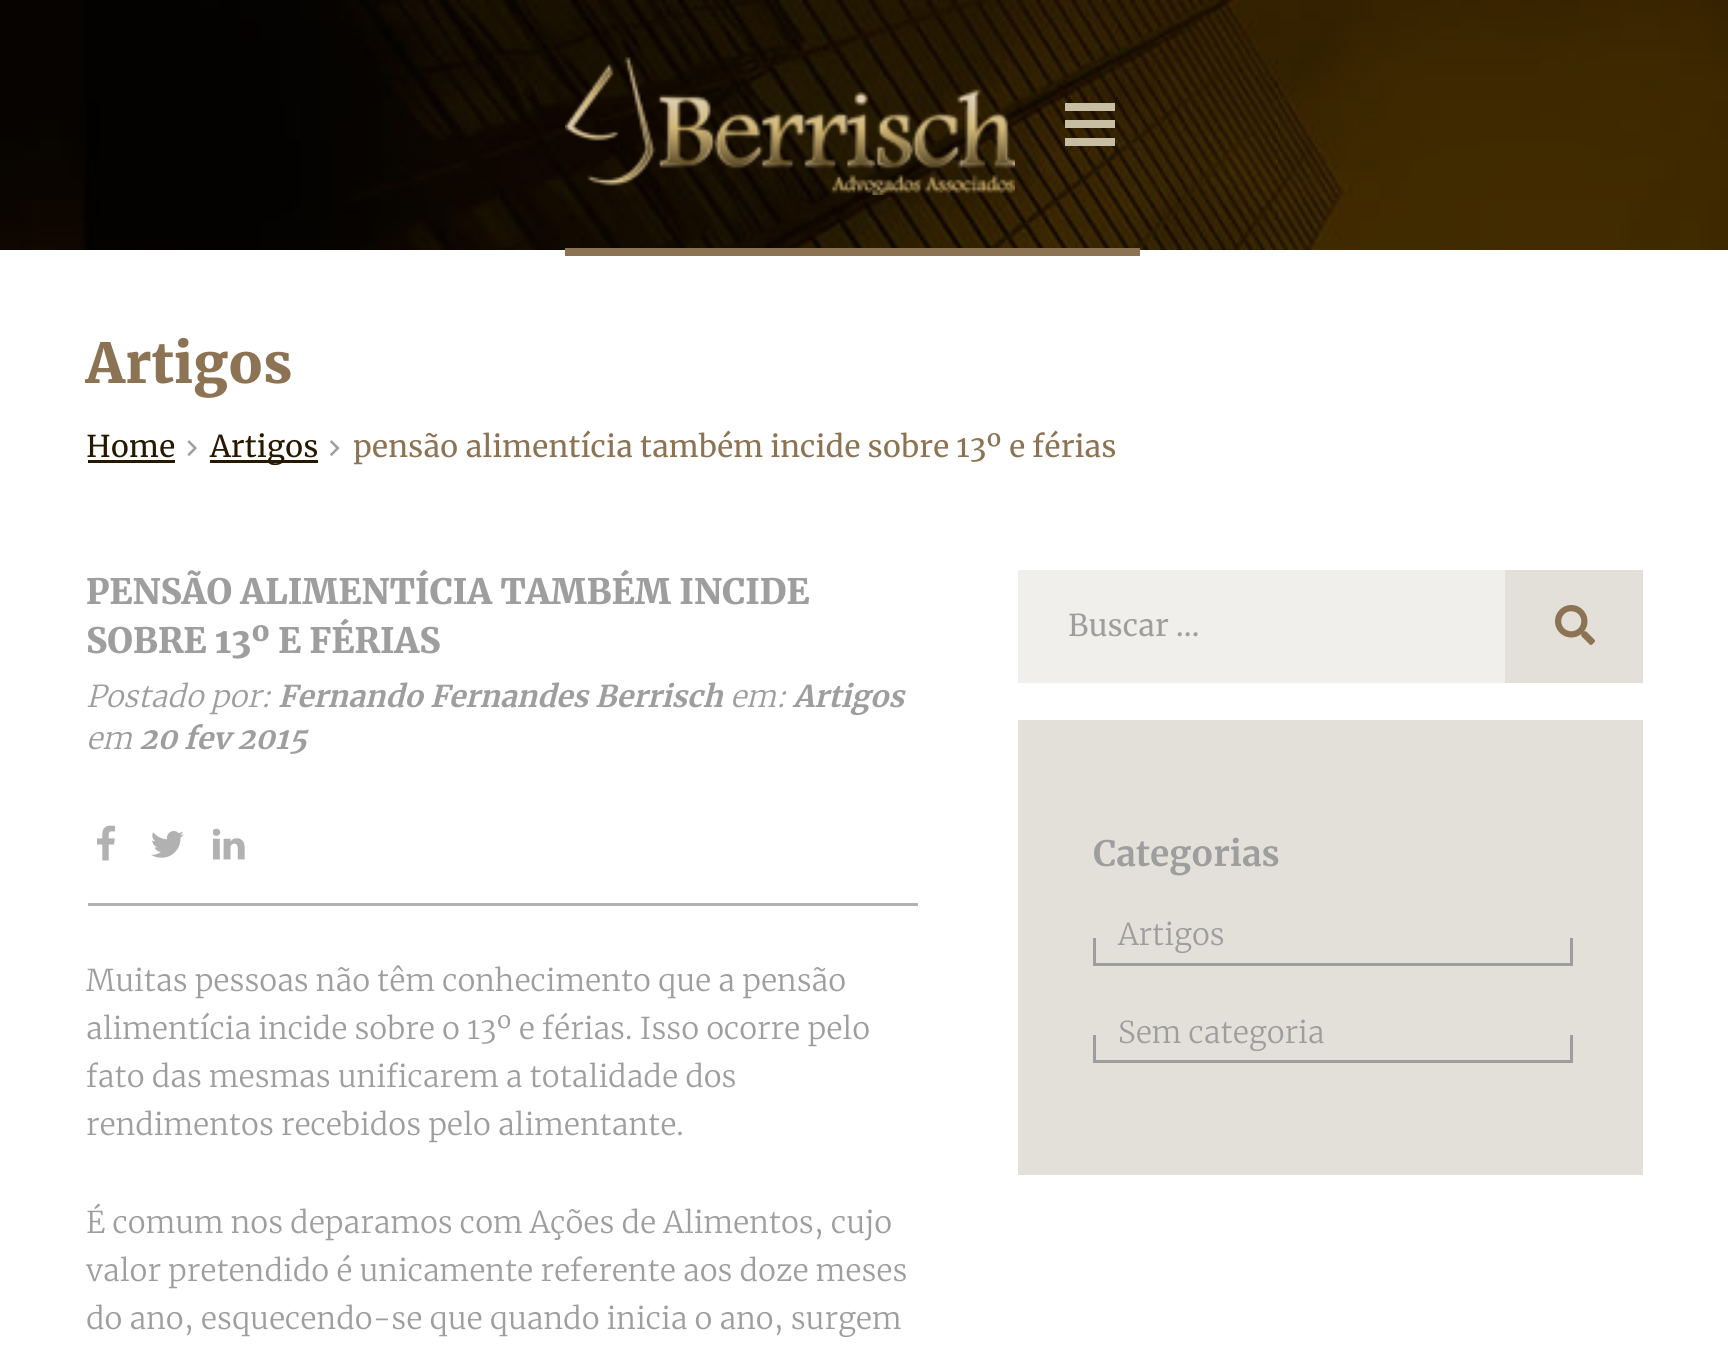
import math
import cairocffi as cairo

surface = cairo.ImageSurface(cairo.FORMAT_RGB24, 1728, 1359)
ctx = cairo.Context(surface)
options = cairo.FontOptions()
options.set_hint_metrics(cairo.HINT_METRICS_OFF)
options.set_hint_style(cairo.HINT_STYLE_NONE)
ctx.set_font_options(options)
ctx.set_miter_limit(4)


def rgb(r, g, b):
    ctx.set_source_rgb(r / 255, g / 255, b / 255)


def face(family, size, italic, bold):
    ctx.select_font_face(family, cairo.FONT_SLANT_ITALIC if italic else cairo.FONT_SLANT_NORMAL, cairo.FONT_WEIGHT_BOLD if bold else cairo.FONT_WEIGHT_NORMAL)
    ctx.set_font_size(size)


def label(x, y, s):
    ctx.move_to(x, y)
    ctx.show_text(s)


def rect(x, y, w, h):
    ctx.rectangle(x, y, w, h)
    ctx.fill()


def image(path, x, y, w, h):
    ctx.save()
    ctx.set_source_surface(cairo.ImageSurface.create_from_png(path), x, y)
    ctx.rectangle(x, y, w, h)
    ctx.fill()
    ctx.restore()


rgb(255, 255, 255)
ctx.paint()
image('image0.png', 0, 0, 1728, 250)
image('image1.png', 565, 57, 450, 138)
rgb(140, 115, 84)
rect(565, 248, 575, 8)
rgb(200, 190, 164)
rect(1065, 120, 50, 8)
rect(1065, 103, 50, 8)
rect(1065, 138, 50, 8)
face('Merriweather Black', 55, 0, 0)
rgb(140, 115, 84)
label(86, 383, 'Artigos')
face('Merriweather', 30, 0, 0)
rgb(39, 24, 1)
label(86, 457, 'Home')
rect(88, 460, 87, 3)
image('image2.png', 187, 440, 10, 16)
rect(210, 460, 108, 3)
label(210, 457, 'Artigos')
image('image3.png', 330, 440, 10, 16)
rgb(140, 115, 84)
label(353, 457, 'pensão alimentícia também incide sobre 13º e férias')
face('Merriweather Black', 35, 0, 0)
rgb(158, 158, 158)
label(86, 604, 'PENSÃO ALIMENTÍCIA TAMBÉM INCIDE')
label(86, 653, 'SOBRE 13º E FÉRIAS')
face('Merriweather Light', 30, 1, 0)
label(86, 707, 'Postado por:')
face('Merriweather', 30, 1, 1)
label(278, 707, 'Fernando Fernandes Berrisch')
face('Merriweather Light', 30, 1, 0)
label(730, 707, 'em:')
face('Merriweather', 30, 1, 1)
label(793, 707, 'Artigos')
face('Merriweather Light', 30, 1, 0)
label(86, 749, 'em')
face('Merriweather', 30, 1, 1)
label(139, 749, '20 fev 2015')
rgb(177, 177, 177)
rect(88, 903, 830, 3)
image('image4.png', 97, 825, 19, 36)
image('image5.png', 151, 831, 33, 27)
image('image6.png', 213, 828, 32, 32)
face('Merriweather Light', 30, 0, 0)
rgb(158, 158, 158)
label(86, 991, 'Muitas pessoas não têm conhecimento que a pensão')
label(86, 1039, 'alimentícia incide sobre o 13º e férias. Isso ocorre pelo')
label(86, 1087, 'fato das mesmas unificarem a totalidade dos')
label(86, 1135, 'rendimentos recebidos pelo alimentante.')
label(86, 1233, 'É comum nos deparamos com Ações de Alimentos, cujo')
label(86, 1281, 'valor pretendido é unicamente referente aos doze meses')
label(86, 1329, 'do ano, esquecendo-se que quando inicia o ano, surgem')
rgb(241, 239, 235)
rect(1018, 570, 487, 113)
face('Merriweather', 30, 0, 0)
rgb(158, 158, 158)
label(1068, 636, 'Buscar …')
rgb(227, 224, 218)
rect(1505, 570, 138, 113)
image('image7.png', 1555, 605, 40, 40)
rect(1018, 720, 625, 455)
face('Merriweather', 35, 0, 1)
rgb(158, 158, 158)
label(1093, 866, 'Categorias')
face('Merriweather Light', 30, 0, 0)
label(1118, 945, 'Artigos')
rect(1570, 938, 3, 27)
rect(1093, 963, 480, 3)
rect(1093, 938, 3, 27)
label(1118, 1043, 'Sem categoria')
rect(1570, 1035, 3, 28)
rect(1093, 1060, 480, 3)
rect(1093, 1035, 3, 28)
surface.write_to_png('render.png')
